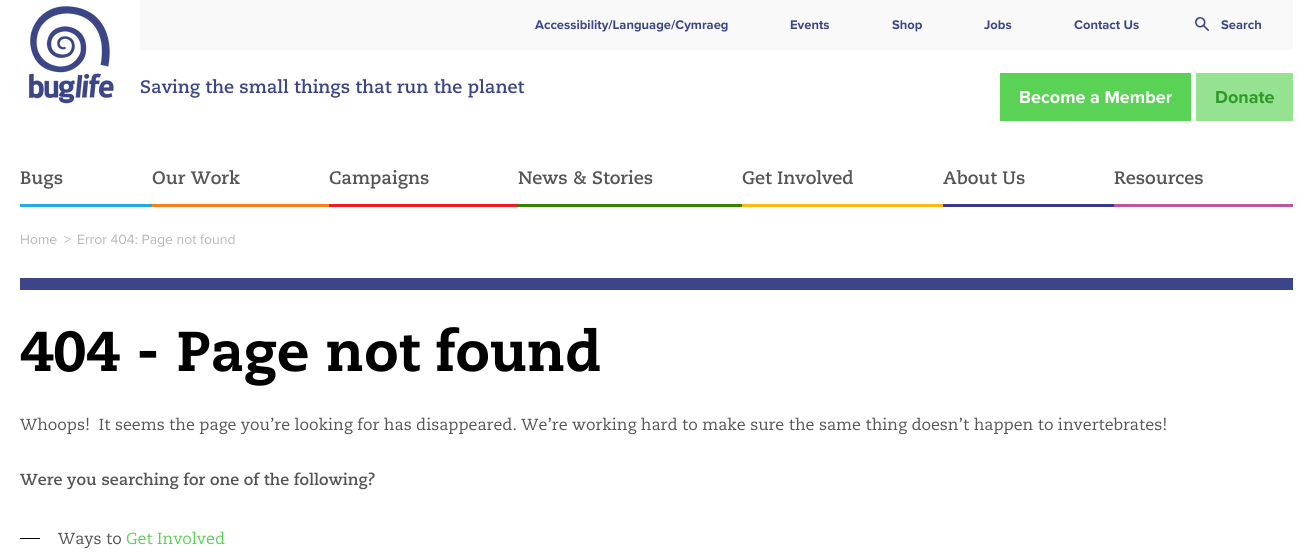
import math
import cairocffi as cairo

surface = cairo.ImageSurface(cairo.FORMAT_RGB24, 1313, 558)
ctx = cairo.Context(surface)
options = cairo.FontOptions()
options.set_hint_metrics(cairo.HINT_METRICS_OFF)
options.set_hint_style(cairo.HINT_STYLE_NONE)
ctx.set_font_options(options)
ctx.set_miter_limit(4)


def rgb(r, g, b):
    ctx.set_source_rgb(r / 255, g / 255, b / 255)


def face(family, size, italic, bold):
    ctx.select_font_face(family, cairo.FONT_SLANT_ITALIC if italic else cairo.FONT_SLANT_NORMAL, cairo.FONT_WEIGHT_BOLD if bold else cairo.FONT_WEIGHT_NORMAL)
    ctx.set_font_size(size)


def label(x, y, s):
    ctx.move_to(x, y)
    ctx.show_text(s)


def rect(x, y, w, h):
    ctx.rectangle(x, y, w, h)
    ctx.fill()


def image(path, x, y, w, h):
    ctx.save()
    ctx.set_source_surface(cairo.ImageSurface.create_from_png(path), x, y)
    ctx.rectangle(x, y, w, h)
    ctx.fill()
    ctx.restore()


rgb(255, 255, 255)
ctx.paint()
image('image0.png', 29, 6, 85, 98)
rgb(249, 249, 249)
rect(140, 0, 1153, 50)
face('Proxima Nova', 13, 0, 1)
rgb(59, 69, 135)
label(535, 29, 'Accessibility/Language/Cymraeg')
label(790, 29, 'Events')
label(892, 29, 'Shop')
label(984, 29, 'Jobs')
label(1074, 29, 'Contact Us')
image('image1.png', 1195, 17, 14, 14)
label(1221, 29, 'Search')
face('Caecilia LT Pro', 18, 0, 1)
label(140, 93, 'Saving the small things that run the planet')
rgb(90, 210, 85)
rect(1000, 73, 191, 48)
face('Proxima Nova', 18, 0, 1)
rgb(255, 255, 255)
label(1019, 103, 'Become a Member')
rgb(149, 226, 145)
rect(1196, 73, 97, 48)
rgb(45, 153, 40)
label(1215, 103, 'Donate')
rgb(39, 170, 225)
rect(20, 204, 132, 3)
face('Caecilia LT Pro', 18, 0, 1)
rgb(85, 85, 85)
label(20, 184, 'Bugs')
rgb(245, 130, 32)
rect(152, 204, 177, 3)
rgb(85, 85, 85)
label(152, 184, 'Our Work')
rgb(237, 28, 36)
rect(329, 204, 189, 3)
rgb(85, 85, 85)
label(329, 184, 'Campaigns')
rgb(57, 130, 0)
rect(518, 204, 224, 3)
rgb(85, 85, 85)
label(518, 184, 'News & Stories')
rgb(253, 185, 19)
rect(742, 204, 201, 3)
rgb(85, 85, 85)
label(742, 184, 'Get Involved')
rgb(57, 56, 139)
rect(943, 204, 171, 3)
rgb(85, 85, 85)
label(943, 184, 'About Us')
rgb(189, 86, 160)
rect(1114, 204, 179, 3)
rgb(85, 85, 85)
label(1114, 184, 'Resources')
face('Proxima Nova', 14, 0, 0)
rgb(186, 182, 179)
label(20, 244, 'Home')
label(64, 244, '>')
label(77, 244, 'Error 404: Page not found')
rgb(59, 69, 135)
rect(20, 278, 1273, 12)
face('Caecilia LT Pro Black', 56, 0, 0)
rgb(0, 0, 0)
label(20, 371, '404 - Page not found')
face('Caecilia LT Pro', 16, 0, 0)
rgb(85, 85, 85)
label(20, 430, 'Whoops!  It seems the page you’re looking for has disappeared. We’re working hard to make sure the same thing doesn’t happen to invertebrates!')
face('Caecilia LT Pro', 16, 0, 1)
label(20, 485, 'Were you searching for one of the following?')
rgb(0, 0, 0)
rect(20, 538, 20, 1)
face('Caecilia LT Pro', 16, 0, 0)
rgb(85, 85, 85)
label(58, 544, 'Ways to')
rgb(90, 210, 85)
label(126, 544, 'Get Involved')
surface.write_to_png('render.png')
